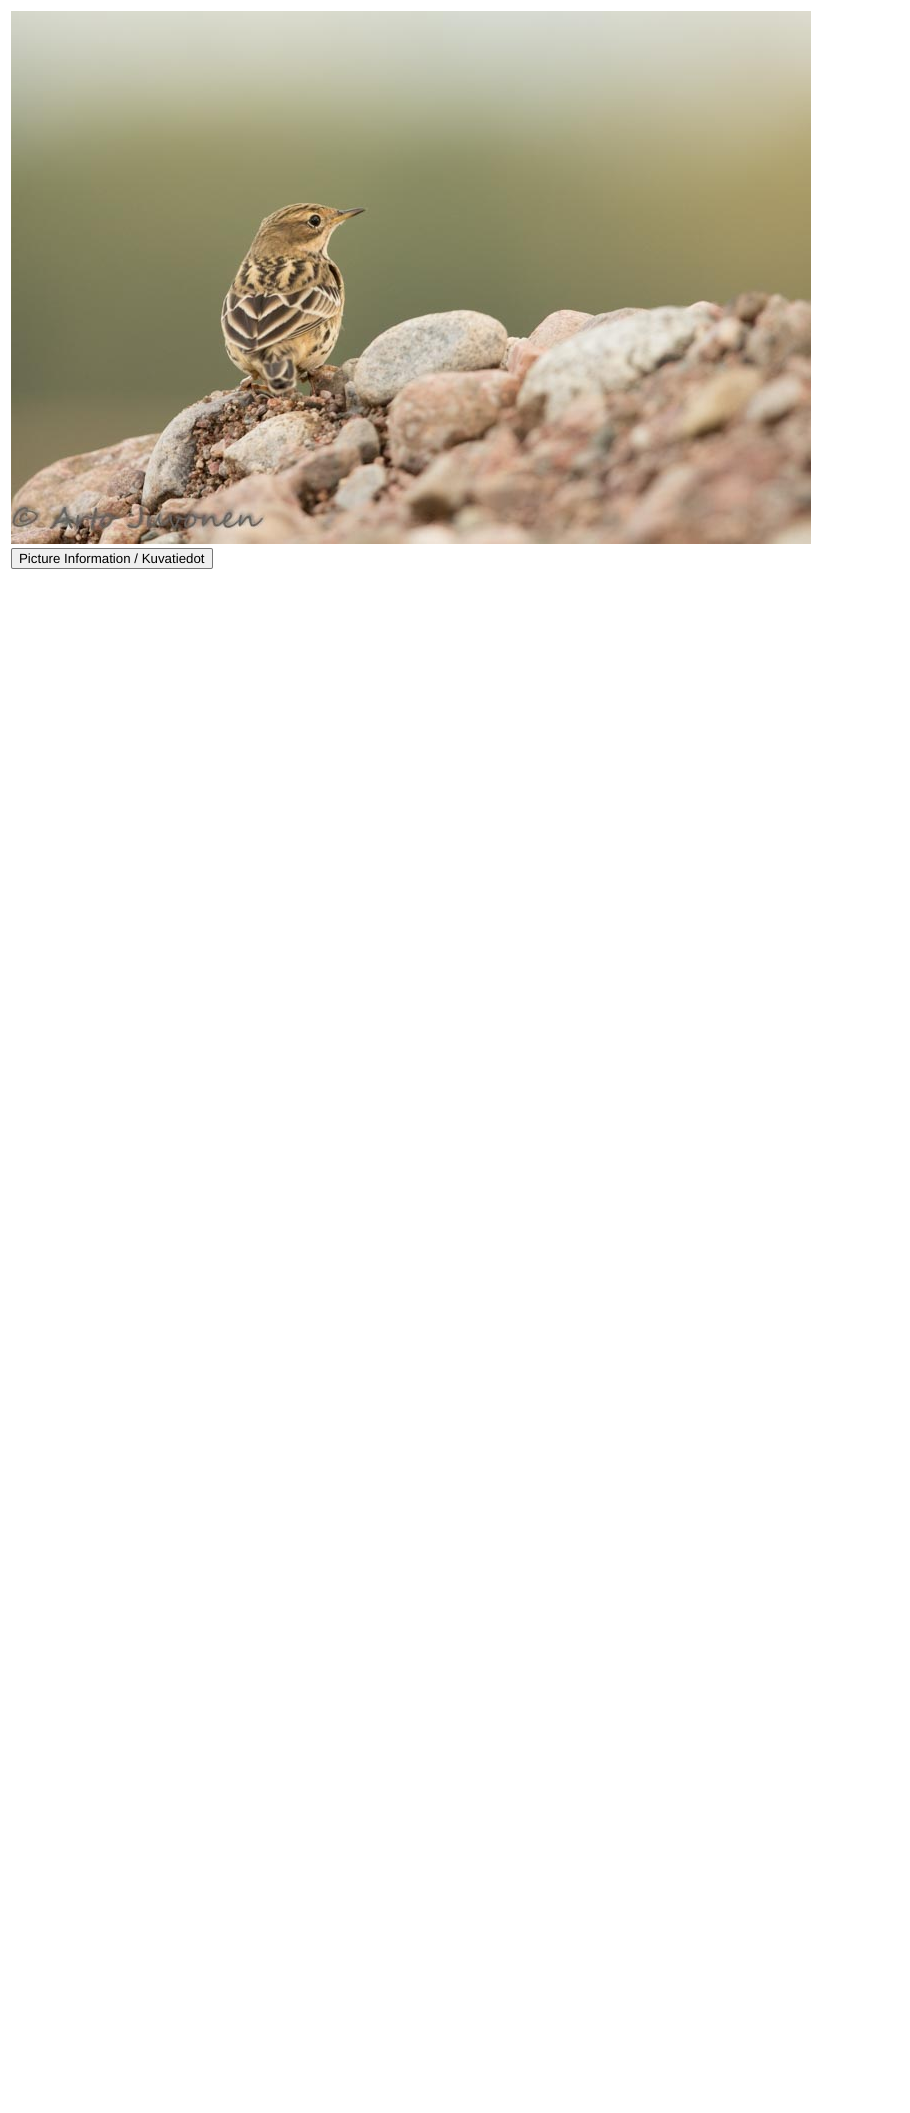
import math
import cairocffi as cairo

surface = cairo.ImageSurface(cairo.FORMAT_RGB24, 910, 2113)
ctx = cairo.Context(surface)
options = cairo.FontOptions()
options.set_hint_metrics(cairo.HINT_METRICS_OFF)
options.set_hint_style(cairo.HINT_STYLE_NONE)
ctx.set_font_options(options)
ctx.set_miter_limit(4)


def rgb(r, g, b):
    ctx.set_source_rgb(r / 255, g / 255, b / 255)


def face(family, size, italic, bold):
    ctx.select_font_face(family, cairo.FONT_SLANT_ITALIC if italic else cairo.FONT_SLANT_NORMAL, cairo.FONT_WEIGHT_BOLD if bold else cairo.FONT_WEIGHT_NORMAL)
    ctx.set_font_size(size)


def label(x, y, s):
    ctx.move_to(x, y)
    ctx.show_text(s)


def rrect(x, y, w, h, r):
    ctx.new_sub_path()
    for i, (u, v) in enumerate([(x + w - r, y + h - r), (x + r, y + h - r), (x + r, y + r), (x + w - r, y + r)]):
        ctx.arc(u, v, r, i * math.pi / 2, (i + 1) * math.pi / 2)
    ctx.close_path()


def image(path, x, y, w, h):
    ctx.save()
    ctx.set_source_surface(cairo.ImageSurface.create_from_png(path), x, y)
    ctx.rectangle(x, y, w, h)
    ctx.fill()
    ctx.restore()


rgb(255, 255, 255)
ctx.paint()
image('image0.png', 11, 11, 800, 533)
rgb(239, 239, 239)
rrect(11.5, 548.5, 201, 20, 1.5)
ctx.fill_preserve()
rgb(118, 118, 118)
ctx.set_line_width(1)
ctx.stroke()
face('Liberation Sans', 13.3, 0, 0)
rgb(0, 0, 0)
label(19, 563, 'Picture Information / Kuvatiedot')
surface.write_to_png('render.png')
